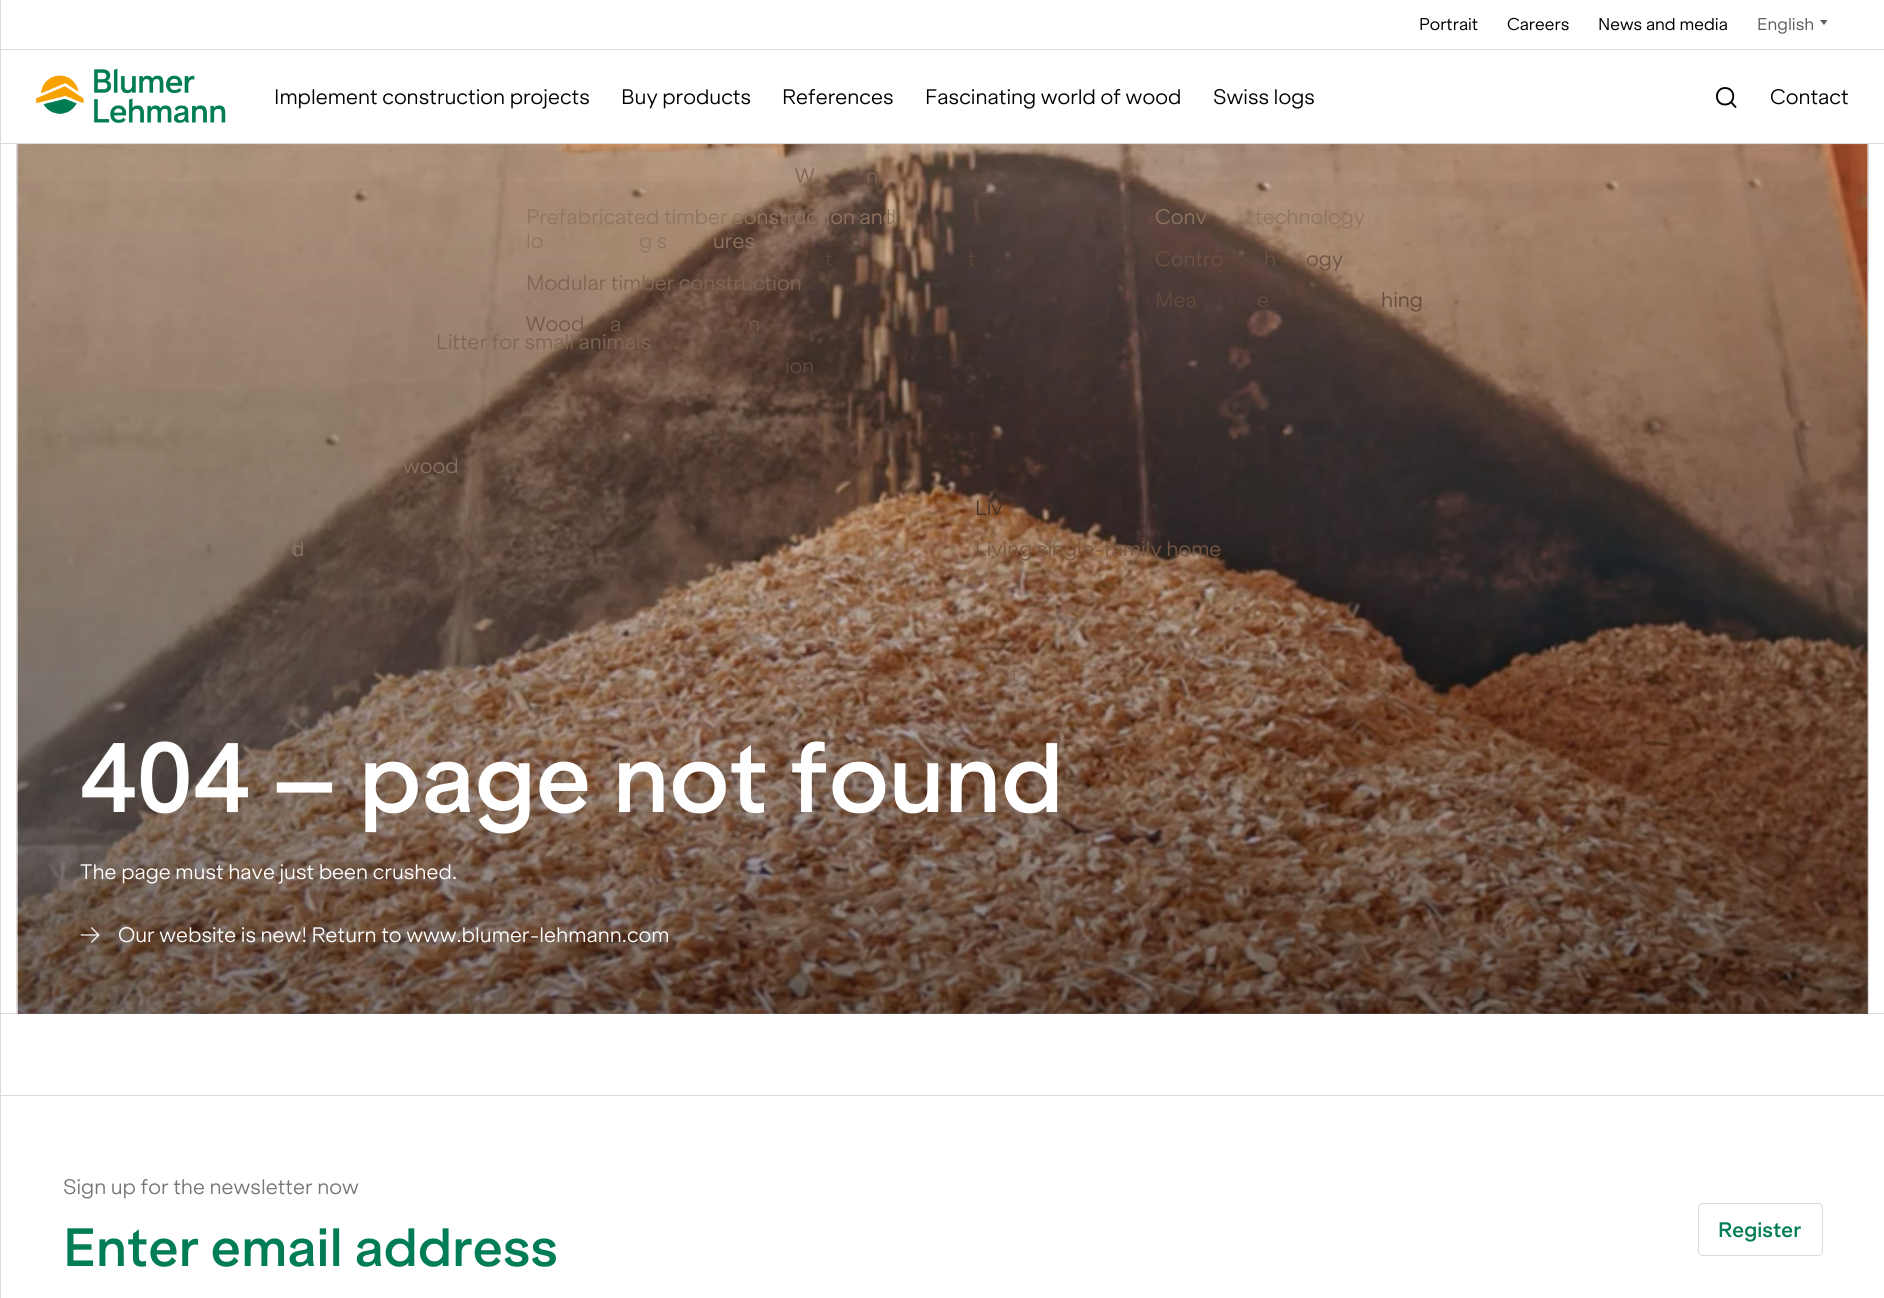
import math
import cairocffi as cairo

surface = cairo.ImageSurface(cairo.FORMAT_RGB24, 1884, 1298)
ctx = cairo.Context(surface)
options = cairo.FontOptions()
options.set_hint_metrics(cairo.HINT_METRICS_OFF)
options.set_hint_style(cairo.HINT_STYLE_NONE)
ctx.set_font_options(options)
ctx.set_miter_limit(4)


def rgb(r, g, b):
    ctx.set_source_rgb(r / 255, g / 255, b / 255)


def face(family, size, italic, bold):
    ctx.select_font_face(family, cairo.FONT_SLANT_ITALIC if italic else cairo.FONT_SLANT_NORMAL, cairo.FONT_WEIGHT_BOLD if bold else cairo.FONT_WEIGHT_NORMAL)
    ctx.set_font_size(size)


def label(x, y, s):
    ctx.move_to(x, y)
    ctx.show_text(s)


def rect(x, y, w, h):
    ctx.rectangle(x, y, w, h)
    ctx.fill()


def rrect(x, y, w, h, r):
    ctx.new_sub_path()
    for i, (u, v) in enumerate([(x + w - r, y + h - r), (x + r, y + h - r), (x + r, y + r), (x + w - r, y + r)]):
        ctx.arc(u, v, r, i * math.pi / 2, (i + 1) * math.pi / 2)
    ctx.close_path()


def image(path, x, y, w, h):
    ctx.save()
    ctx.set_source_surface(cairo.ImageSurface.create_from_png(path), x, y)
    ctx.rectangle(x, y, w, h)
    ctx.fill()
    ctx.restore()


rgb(255, 255, 255)
ctx.paint()
rgb(218, 218, 218)
rect(0, 0, 1, 1298)
rect(1, 49, 1883, 1)
face('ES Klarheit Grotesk', 16.25, 0, 0)
rgb(0, 0, 0)
label(1419, 30, 'Portrait')
label(1507, 30, 'Careers')
label(1598, 30, 'News and media')
rgb(93, 95, 88)
label(1757, 30, 'English')
ctx.new_path()
ctx.move_to(1820, 20)
ctx.line_to(1827.5, 20)
ctx.line_to(1824, 25)
ctx.close_path()
ctx.fill()
image('image0.png', 36, 68, 190, 55)
face('ES Klarheit Grotesk Light', 20, 0, 0)
rgb(0, 0, 0)
label(274, 104, 'Implement construction projects')
rgb(218, 218, 218)
ctx.new_path()
ctx.move_to(16, 144)
ctx.line_to(16, 1014)
ctx.line_to(1866, 1014)
ctx.line_to(18, 1014)
ctx.line_to(18, 144)
ctx.close_path()
ctx.fill()
ctx.new_path()
ctx.move_to(19, 1014)
ctx.line_to(1869, 1014)
ctx.line_to(1869, 144)
ctx.line_to(1868, 144)
ctx.line_to(1868, 1014)
ctx.close_path()
ctx.fill()
rect(1, 1013, 1883, 1)
image('image1.png', 17, 144, 1851, 870)
gradient = cairo.LinearGradient(943, 1014, 943, 144)
gradient.add_color_stop_rgba(0, 0, 0, 0, 0.5)
gradient.add_color_stop_rgba(1, 0, 0, 0, 0)
ctx.set_source(gradient)
rect(18, 182, 1850, 832)
rgb(144, 116, 96)
label(526, 224, 'Prefabricated timber construction and')
label(526, 248, 'lo')
label(639, 248, 'g s')
label(713, 248, 'ures')
rgb(128, 101, 83)
label(526, 290, 'Modular timber construction')
rgb(117, 90, 74)
label(526, 331, 'Wood')
label(610, 331, 'a')
label(748, 331, 'n')
rgb(99, 74, 60)
label(785, 373, 'ion')
rgb(135, 114, 97)
label(403, 473, 'wood')
label(292, 556, 't')
rgb(69, 51, 43)
label(975, 515, 'Liv')
rgb(118, 87, 66)
label(975, 556, 'Living single-family home')
rgb(134, 99, 77)
label(1011, 681, 't')
ctx.new_path()
ctx.move_to(1725, 104.5)
ctx.curve_to(1736, 104.5, 1736, 88, 1725, 88)
ctx.curve_to(1714.5, 88, 1714, 104.5, 1725, 104.5)
ctx.close_path()
ctx.move_to(1731, 102)
ctx.line_to(1735.5, 107)
rgb(0, 0, 0)
ctx.set_line_width(1.9)
ctx.set_line_cap(cairo.LINE_CAP_ROUND)
ctx.set_line_join(cairo.LINE_JOIN_ROUND)
ctx.stroke()
label(621, 104, 'Buy products')
rgb(128, 101, 83)
label(795, 183, 'W')
label(866, 183, 'n')
label(886, 224, 'l')
rgb(93, 71, 59)
label(825, 266, 't')
label(968, 266, 't')
rgb(144, 116, 96)
label(1155, 224, 'Conv')
label(1255, 224, 'technology')
rgb(108, 82, 69)
label(1155, 266, 'Contro')
label(1264, 266, 'h')
label(1306, 266, 'ogy')
rgb(99, 74, 60)
label(1155, 307, 'Mea')
label(1257, 307, 'e')
label(1381, 307, 'hing')
rgb(128, 101, 83)
label(436, 349, 'Litter for small animals')
rgb(135, 114, 97)
label(291, 556, 'd')
rgb(0, 0, 0)
label(782, 104, 'References')
label(925, 104, 'Fascinating world of wood')
label(1213, 104, 'Swiss logs')
label(1770, 104, 'Contact')
rgb(218, 218, 218)
rect(1, 143, 1883, 1)
face('ES Klarheit Grotesk SemiBold', 93.75, 0, 0)
rgb(255, 255, 255)
label(80, 812, '404 – page not found')
face('ES Klarheit Grotesk Light', 20, 0, 0)
label(80, 879, 'The page must have just been crushed.')
image('image2.png', 80, 927, 20, 16)
label(118, 942, 'Our website is new! Return to www.blumer-lehmann.com')
rgb(218, 218, 218)
rect(0, 1095, 1884, 1)
rgb(118, 118, 118)
label(63, 1194, 'Sign up for the newsletter now')
face('ES Klarheit Grotesk SemiBold', 51.25, 0, 0)
rgb(0, 124, 86)
label(63, 1266, 'Enter email address')
rrect(1698.5, 1203.5, 124, 52, 4.5)
rgb(218, 218, 218)
ctx.set_line_width(1)
ctx.set_line_cap(cairo.LINE_CAP_BUTT)
ctx.set_line_join(cairo.LINE_JOIN_MITER)
ctx.stroke()
face('ES Klarheit Grotesk SemiBold', 20, 0, 0)
rgb(0, 124, 86)
label(1718, 1237, 'Register')
surface.write_to_png('render.png')
